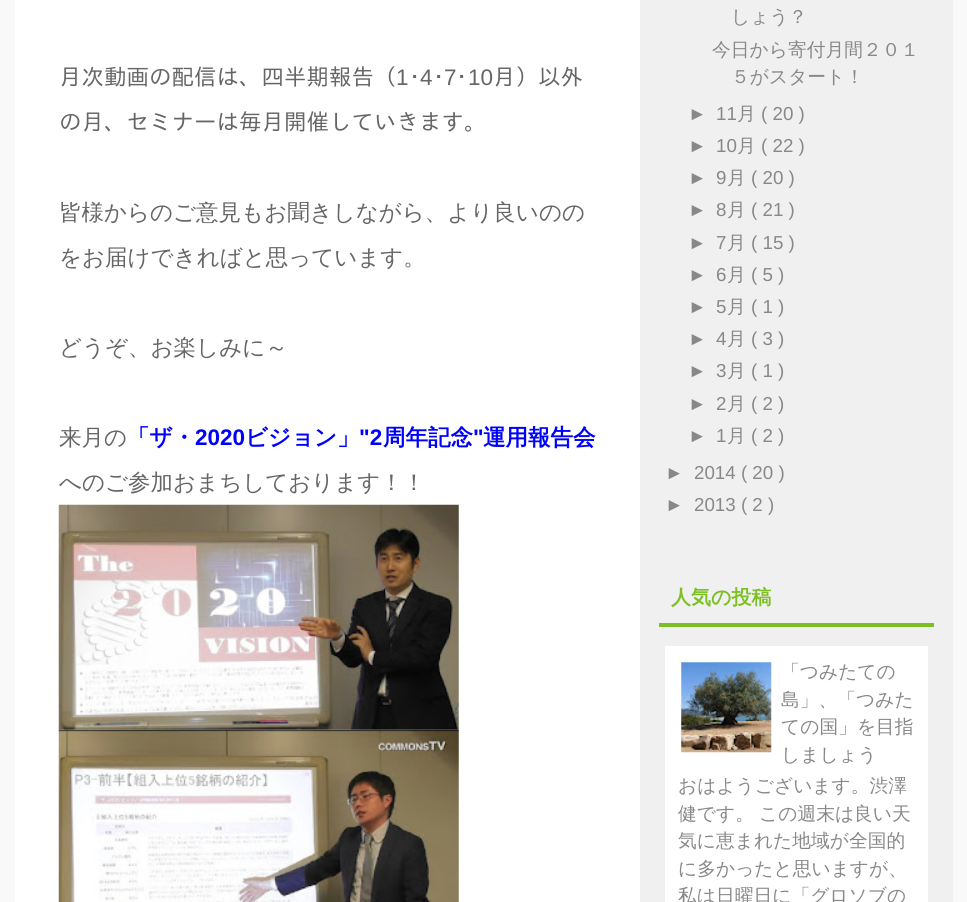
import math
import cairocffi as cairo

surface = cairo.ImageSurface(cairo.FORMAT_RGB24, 967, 902)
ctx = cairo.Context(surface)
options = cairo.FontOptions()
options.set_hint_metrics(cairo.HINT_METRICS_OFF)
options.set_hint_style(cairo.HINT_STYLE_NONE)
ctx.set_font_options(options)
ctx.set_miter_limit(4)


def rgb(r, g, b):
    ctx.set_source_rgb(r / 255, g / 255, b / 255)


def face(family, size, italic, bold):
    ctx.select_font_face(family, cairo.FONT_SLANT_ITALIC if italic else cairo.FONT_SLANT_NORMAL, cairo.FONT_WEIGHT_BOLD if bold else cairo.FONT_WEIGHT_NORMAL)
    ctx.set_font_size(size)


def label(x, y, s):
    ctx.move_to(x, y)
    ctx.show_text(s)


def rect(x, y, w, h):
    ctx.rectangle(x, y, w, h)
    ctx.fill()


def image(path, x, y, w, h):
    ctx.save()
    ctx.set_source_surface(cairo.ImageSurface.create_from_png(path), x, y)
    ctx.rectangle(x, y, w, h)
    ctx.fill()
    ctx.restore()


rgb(249, 249, 249)
ctx.paint()
rgb(255, 255, 255)
rect(15, 0, 625, 902)
face('IPAGothic', 22.5, 0, 0)
rgb(102, 102, 102)
label(59, 85, '月次動画の配信は、四半期報告（')
face('Liberation Sans', 22.5, 0, 0)
label(396, 85, '1')
face('IPAGothic', 22.5, 0, 0)
label(409, 85, '･')
face('Liberation Sans', 22.5, 0, 0)
label(420, 85, '4')
face('IPAGothic', 22.5, 0, 0)
label(433, 85, '･')
face('Liberation Sans', 22.5, 0, 0)
label(444, 85, '7')
face('IPAGothic', 22.5, 0, 0)
label(456, 85, '･')
face('Liberation Sans', 22.5, 0, 0)
label(468, 85, '10')
face('IPAGothic', 22.5, 0, 0)
label(493, 85, '月）以外')
label(59, 130, 'の月、セミナーは毎月開催していきます。')
face('WenQuanYi Zen Hei Medium', 22.5, 0, 0)
label(59, 220, '皆様からのご意見もお聞きしながら、より良いのの')
label(59, 265, 'をお届けできればと思っています。')
label(59, 355, 'どうぞ、お楽しみに～')
label(59, 445, '来月の')
face('WenQuanYi Zen Hei', 22.5, 0, 1)
rgb(0, 0, 255)
label(127, 445, '「ザ・')
face('Liberation Sans', 22.5, 0, 1)
label(195, 445, '2020')
face('WenQuanYi Zen Hei', 22.5, 0, 1)
label(245, 445, 'ビジョン」')
face('Liberation Sans', 22.5, 0, 1)
label(359, 445, '"2')
face('WenQuanYi Zen Hei', 22.5, 0, 1)
label(383, 445, '周年記念')
face('Liberation Sans', 22.5, 0, 1)
label(473, 445, '"')
face('WenQuanYi Zen Hei', 22.5, 0, 1)
label(483, 445, '運用報告会')
face('WenQuanYi Zen Hei Medium', 22.5, 0, 0)
rgb(102, 102, 102)
label(59, 490, 'へのご参加おまちしております！！')
image('image0.png', 58, 504, 401, 226)
image('image1.png', 58, 729, 401, 173)
rgb(240, 240, 240)
rect(640, 0, 313, 902)
face('WenQuanYi Zen Hei Medium', 18.75, 0, 0)
rgb(136, 136, 136)
label(731, 23, 'しょう？')
label(712, 56, '今日から寄付月間２０１')
label(731, 83, '５がスタート！')
face('Liberation Sans', 18.75, 0, 0)
label(688, 120, '►')
label(716, 120, '11')
face('WenQuanYi Zen Hei Medium', 18.75, 0, 0)
label(737, 120, '月')
face('Liberation Sans', 18.75, 0, 0)
label(761, 120, '( 20 )')
label(688, 152, '►')
label(716, 152, '10')
face('WenQuanYi Zen Hei Medium', 18.75, 0, 0)
label(737, 152, '月')
face('Liberation Sans', 18.75, 0, 0)
label(761, 152, '( 22 )')
label(688, 184, '►')
label(716, 184, '9')
face('WenQuanYi Zen Hei Medium', 18.75, 0, 0)
label(727, 184, '月')
face('Liberation Sans', 18.75, 0, 0)
label(751, 184, '( 20 )')
label(688, 216, '►')
label(716, 216, '8')
face('WenQuanYi Zen Hei Medium', 18.75, 0, 0)
label(727, 216, '月')
face('Liberation Sans', 18.75, 0, 0)
label(751, 216, '( 21 )')
label(688, 249, '►')
label(716, 249, '7')
face('WenQuanYi Zen Hei Medium', 18.75, 0, 0)
label(727, 249, '月')
face('Liberation Sans', 18.75, 0, 0)
label(751, 249, '( 15 )')
label(688, 281, '►')
label(716, 281, '6')
face('WenQuanYi Zen Hei Medium', 18.75, 0, 0)
label(727, 281, '月')
face('Liberation Sans', 18.75, 0, 0)
label(751, 281, '( 5 )')
label(688, 313, '►')
label(716, 313, '5')
face('WenQuanYi Zen Hei Medium', 18.75, 0, 0)
label(727, 313, '月')
face('Liberation Sans', 18.75, 0, 0)
label(751, 313, '( 1 )')
label(688, 345, '►')
label(716, 345, '4')
face('WenQuanYi Zen Hei Medium', 18.75, 0, 0)
label(727, 345, '月')
face('Liberation Sans', 18.75, 0, 0)
label(751, 345, '( 3 )')
label(688, 377, '►')
label(716, 377, '3')
face('WenQuanYi Zen Hei Medium', 18.75, 0, 0)
label(727, 377, '月')
face('Liberation Sans', 18.75, 0, 0)
label(751, 377, '( 1 )')
label(688, 410, '►')
label(716, 410, '2')
face('WenQuanYi Zen Hei Medium', 18.75, 0, 0)
label(727, 410, '月')
face('Liberation Sans', 18.75, 0, 0)
label(751, 410, '( 2 )')
label(688, 442, '►')
label(716, 442, '1')
face('WenQuanYi Zen Hei Medium', 18.75, 0, 0)
label(727, 442, '月')
face('Liberation Sans', 18.75, 0, 0)
label(751, 442, '( 2 )')
label(665, 479, '►')
label(694, 479, '2014 ( 20 )')
label(665, 511, '►')
label(694, 511, '2013 ( 2 )')
rgb(124, 192, 35)
rect(659, 623, 275, 4)
face('WenQuanYi Zen Hei', 20, 0, 1)
label(671, 604, '人気の投稿')
rgb(255, 255, 255)
rect(665, 646, 263, 256)
image('image2.png', 681, 662, 91, 91)
face('WenQuanYi Zen Hei Medium', 18.75, 0, 0)
rgb(136, 136, 136)
label(781, 678, '「つみたての')
label(781, 706, '島」、「つみた')
label(781, 733, 'ての国」を目指')
label(781, 761, 'しましょう')
label(678, 792, 'おはようございます。渋澤')
label(678, 820, '健です。')
label(759, 820, 'この週末は良い天')
label(678, 847, '気に恵まれた地域が全国的')
label(678, 875, 'に多かったと思いますが、')
label(678, 902, '私は日曜日に「グロソブの')
surface.write_to_png('render.png')
